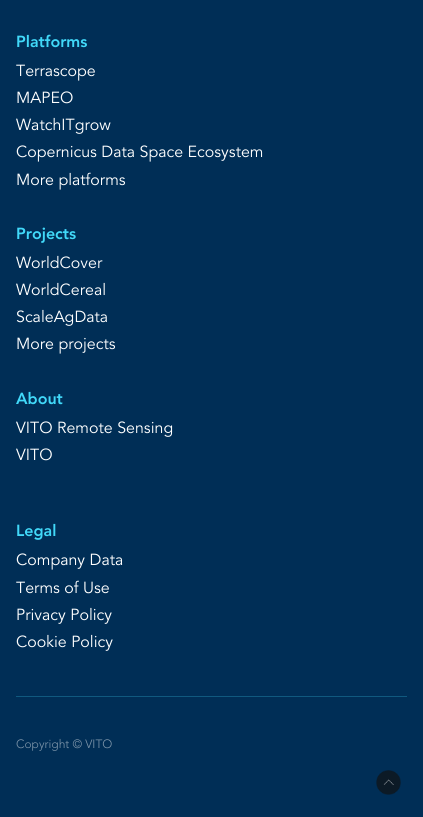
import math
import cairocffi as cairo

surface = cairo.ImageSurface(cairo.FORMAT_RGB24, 423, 817)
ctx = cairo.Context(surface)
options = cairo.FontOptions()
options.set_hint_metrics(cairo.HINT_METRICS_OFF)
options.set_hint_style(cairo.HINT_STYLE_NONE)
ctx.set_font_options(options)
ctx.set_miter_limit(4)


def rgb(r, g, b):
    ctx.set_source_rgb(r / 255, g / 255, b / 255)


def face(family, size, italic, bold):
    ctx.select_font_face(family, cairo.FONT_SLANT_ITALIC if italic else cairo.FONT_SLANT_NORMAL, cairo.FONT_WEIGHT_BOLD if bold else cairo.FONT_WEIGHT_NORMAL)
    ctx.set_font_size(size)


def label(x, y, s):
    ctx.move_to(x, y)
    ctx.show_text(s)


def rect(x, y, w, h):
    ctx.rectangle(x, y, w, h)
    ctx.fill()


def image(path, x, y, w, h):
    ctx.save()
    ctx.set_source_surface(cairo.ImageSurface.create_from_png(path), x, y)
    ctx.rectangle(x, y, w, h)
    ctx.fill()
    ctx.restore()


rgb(0, 46, 86)
ctx.paint()
face('Avenir Black', 16, 0, 0)
rgb(65, 217, 249)
label(16, 47, 'Platforms')
face('Avenir', 16, 0, 0)
rgb(255, 255, 255)
label(16, 76, 'Terrascope')
label(16, 103, 'MAPEO')
label(16, 130, 'WatchITgrow')
label(16, 157, 'Copernicus Data Space Ecosystem')
label(16, 185, 'More platforms')
face('Avenir Black', 16, 0, 0)
rgb(65, 217, 249)
label(16, 239, 'Projects')
face('Avenir', 16, 0, 0)
rgb(255, 255, 255)
label(16, 268, 'WorldCover')
label(16, 295, 'WorldCereal')
label(16, 322, 'ScaleAgData')
label(16, 349, 'More projects')
face('Avenir Black', 16, 0, 0)
rgb(65, 217, 249)
label(16, 404, 'About')
face('Avenir', 16, 0, 0)
rgb(255, 255, 255)
label(16, 433, 'VITO Remote Sensing')
label(16, 460, 'VITO')
face('Avenir Black', 16, 0, 0)
rgb(65, 217, 249)
label(16, 536, 'Legal')
face('Avenir', 16, 0, 0)
rgb(255, 255, 255)
label(16, 565, 'Company Data')
label(16, 593, 'Terms of Use')
label(16, 620, 'Privacy Policy')
label(16, 647, 'Cookie Policy')
rgb(16, 89, 127)
rect(16, 696, 391, 1)
face('Avenir Light', 12, 0, 0)
rgb(128, 151, 171)
label(16, 748, 'Copyright © VITO')
image('image0.png', 376, 770, 25, 25)
surface.write_to_png('render.png')
